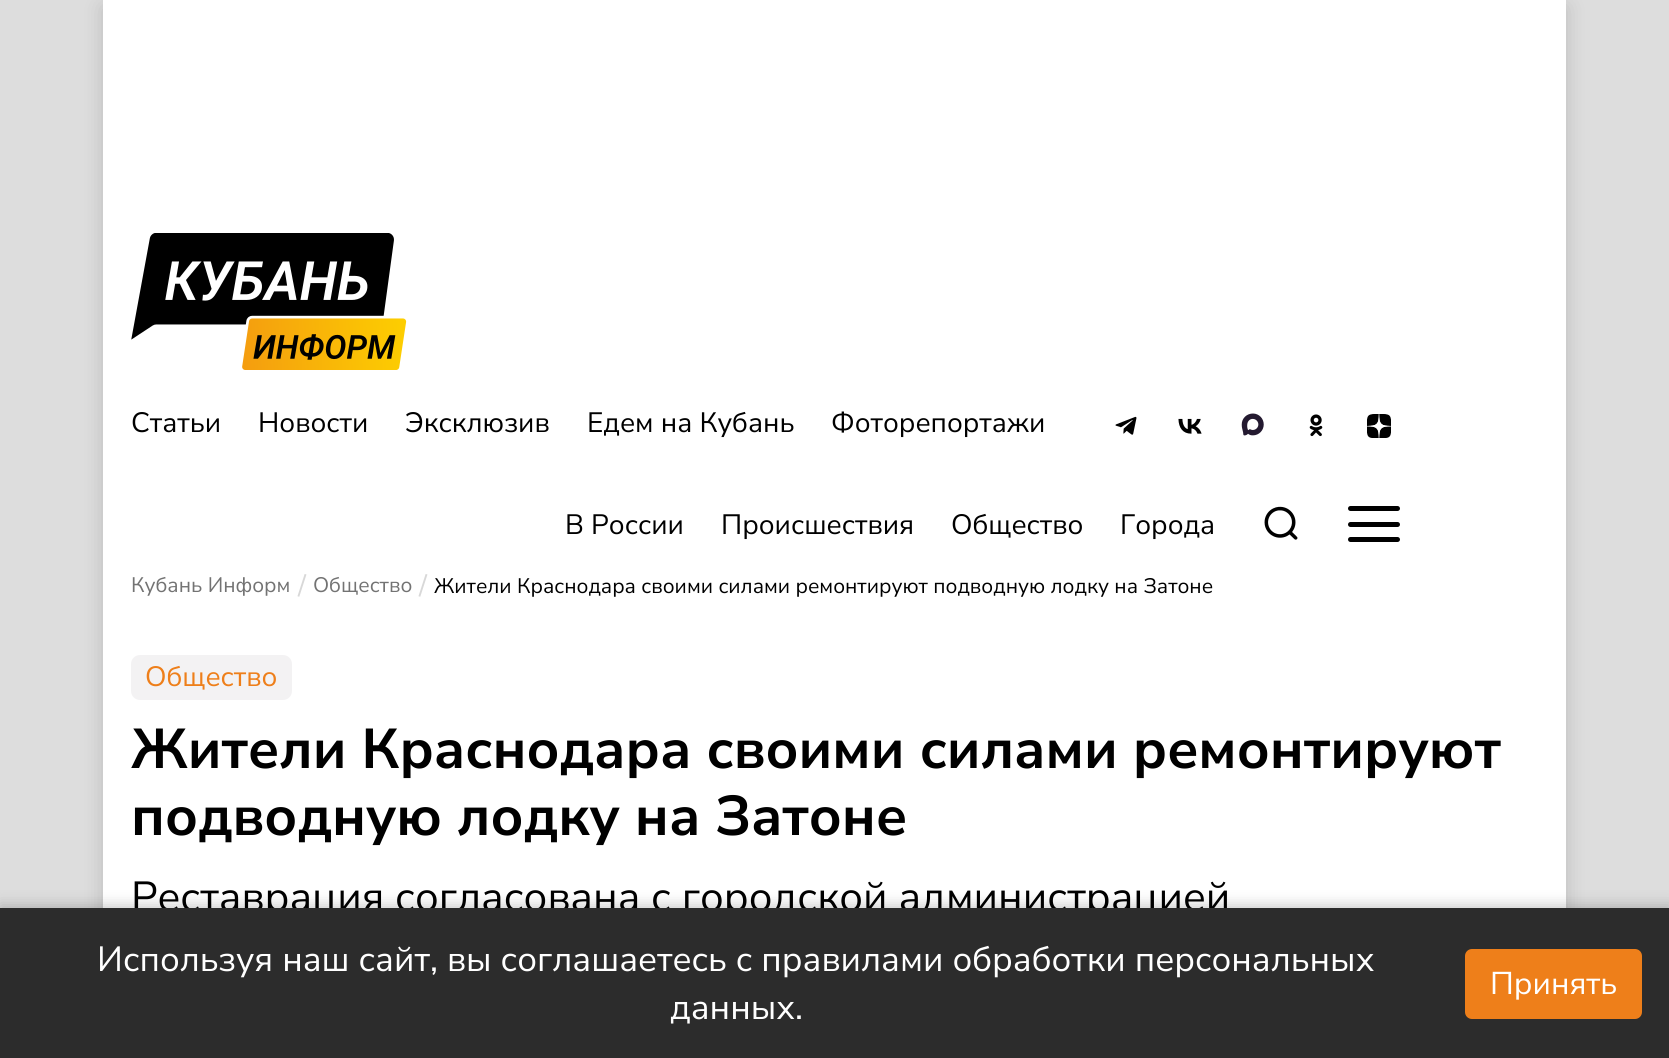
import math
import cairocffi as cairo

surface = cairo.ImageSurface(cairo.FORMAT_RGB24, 1669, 1058)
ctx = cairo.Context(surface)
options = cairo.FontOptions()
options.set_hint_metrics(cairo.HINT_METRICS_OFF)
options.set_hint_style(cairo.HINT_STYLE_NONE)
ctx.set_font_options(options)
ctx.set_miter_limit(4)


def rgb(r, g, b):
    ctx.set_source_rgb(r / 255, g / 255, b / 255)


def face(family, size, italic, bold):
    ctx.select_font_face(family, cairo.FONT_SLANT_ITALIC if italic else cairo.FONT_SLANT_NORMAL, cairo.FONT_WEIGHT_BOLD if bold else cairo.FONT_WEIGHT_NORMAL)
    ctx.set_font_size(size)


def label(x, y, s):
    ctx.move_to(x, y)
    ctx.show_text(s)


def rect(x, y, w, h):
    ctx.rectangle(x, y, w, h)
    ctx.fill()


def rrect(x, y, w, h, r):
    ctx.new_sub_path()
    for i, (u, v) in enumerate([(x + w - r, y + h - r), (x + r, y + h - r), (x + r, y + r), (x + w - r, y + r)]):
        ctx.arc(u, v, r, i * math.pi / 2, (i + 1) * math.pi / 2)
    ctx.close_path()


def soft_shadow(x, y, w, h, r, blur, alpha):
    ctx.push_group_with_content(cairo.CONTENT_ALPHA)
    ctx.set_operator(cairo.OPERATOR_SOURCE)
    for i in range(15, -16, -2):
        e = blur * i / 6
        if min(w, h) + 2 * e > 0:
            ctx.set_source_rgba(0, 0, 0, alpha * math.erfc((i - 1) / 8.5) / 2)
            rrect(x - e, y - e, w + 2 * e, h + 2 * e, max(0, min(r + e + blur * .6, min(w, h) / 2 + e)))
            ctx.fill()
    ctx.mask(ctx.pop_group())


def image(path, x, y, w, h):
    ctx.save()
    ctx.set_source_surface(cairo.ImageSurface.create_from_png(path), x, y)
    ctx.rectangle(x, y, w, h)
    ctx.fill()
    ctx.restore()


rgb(221, 221, 221)
ctx.paint()
rgb(0, 0, 0)
soft_shadow(103, 7, 1463, 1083, 0, 10.5, 0.15)
rgb(255, 255, 255)
rect(103, 0, 1463, 908)
image('image0.png', 131, 233, 276, 137)
face('Nunito Sans', 28, 0, 0)
rgb(0, 0, 0)
label(131, 432, 'Статьи')
label(258, 432, 'Новости')
label(405, 432, 'Эксклюзив')
label(587, 432, 'Едем на Кубань')
label(831, 432, 'Фоторепортажи')
image('image1.png', 1115, 416, 22, 19)
image('image2.png', 1178, 418, 24, 16)
image('image3.png', 1241, 413, 23, 23)
image('image4.png', 1309, 414, 14, 23)
image('image5.png', 1367, 414, 24, 24)
label(565, 534, 'В России')
label(721, 534, 'Происшествия')
label(951, 534, 'Общество')
label(1120, 534, 'Города')
image('image6.png', 1264, 506, 34, 34)
rrect(1348, 522, 52, 5, 2.5)
ctx.fill()
rrect(1348, 506, 52, 5, 2.5)
ctx.fill()
rrect(1348, 537, 52, 5, 2.5)
ctx.fill()
face('Nunito Sans', 21, 0, 0)
rgb(115, 115, 115)
label(131, 592, 'Кубань Информ')
face('Nunito Sans', 28, 0, 0)
rgb(216, 216, 216)
label(298, 595, '/')
face('Nunito Sans', 21, 0, 0)
rgb(115, 115, 115)
label(313, 592, 'Общество')
face('Nunito Sans', 28, 0, 0)
rgb(216, 216, 216)
label(419, 595, '/')
face('Nunito Sans', 21, 0, 0)
rgb(0, 0, 0)
label(434, 593, 'Жители Краснодара своими силами ремонтируют подводную лодку на Затоне')
rgb(243, 242, 243)
rrect(131, 655, 161, 45, 9)
ctx.fill()
face('Nunito Sans', 28, 0, 0)
rgb(238, 127, 26)
label(145, 686, 'Общество')
face('Nunito Sans', 56, 0, 1)
rgb(0, 0, 0)
label(131, 768, 'Жители Краснодара своими силами ремонтируют')
label(131, 835, 'подводную лодку на Затоне')
face('Nunito Sans', 42, 0, 0)
label(131, 911, 'Реставрация согласована с городской администрацией')
rgb(0, 0, 0)
soft_shadow(0, 905, 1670, 150, 0, 7, 0.2)
rgb(44, 44, 44)
rect(0, 908, 1669, 150)
face('Nunito Sans', 35, 0, 0)
rgb(255, 255, 255)
label(97, 971, 'Используя наш сайт, вы соглашаетесь с правилами обработки персональных')
label(670, 1019, 'данных.')
rgb(238, 127, 26)
rrect(1465, 949, 177, 70, 7)
ctx.fill()
face('Nunito Sans', 31.5, 0, 0)
rgb(255, 255, 255)
label(1490, 994, 'Принять')
surface.write_to_png('render.png')
